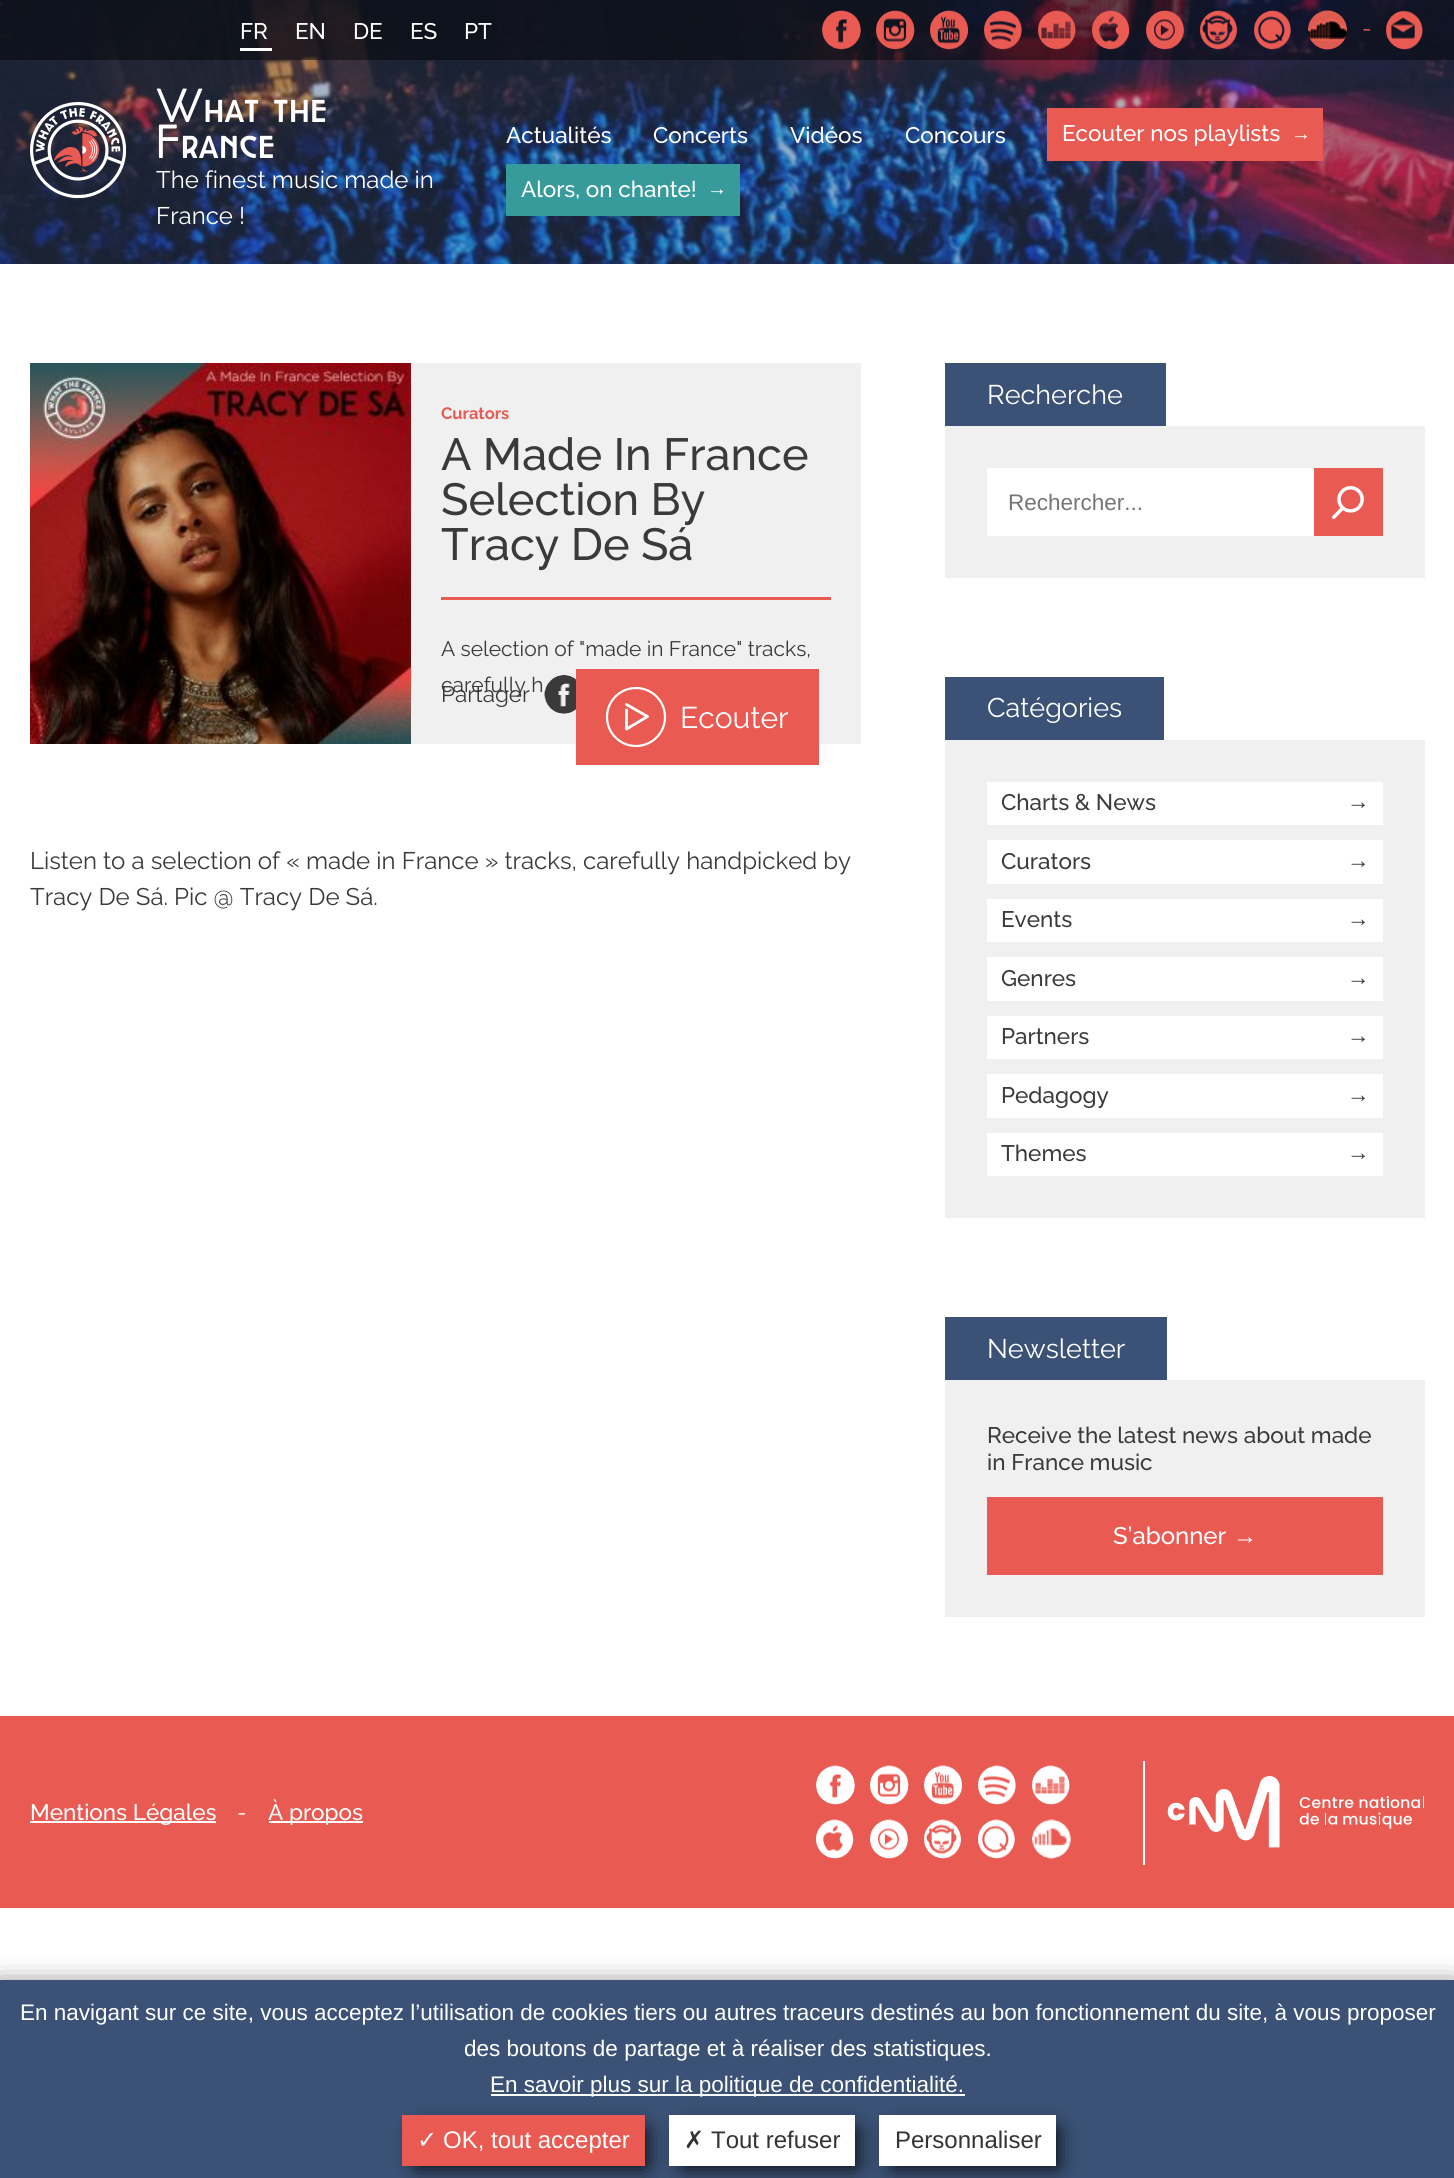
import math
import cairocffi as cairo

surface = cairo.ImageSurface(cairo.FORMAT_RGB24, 1454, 2178)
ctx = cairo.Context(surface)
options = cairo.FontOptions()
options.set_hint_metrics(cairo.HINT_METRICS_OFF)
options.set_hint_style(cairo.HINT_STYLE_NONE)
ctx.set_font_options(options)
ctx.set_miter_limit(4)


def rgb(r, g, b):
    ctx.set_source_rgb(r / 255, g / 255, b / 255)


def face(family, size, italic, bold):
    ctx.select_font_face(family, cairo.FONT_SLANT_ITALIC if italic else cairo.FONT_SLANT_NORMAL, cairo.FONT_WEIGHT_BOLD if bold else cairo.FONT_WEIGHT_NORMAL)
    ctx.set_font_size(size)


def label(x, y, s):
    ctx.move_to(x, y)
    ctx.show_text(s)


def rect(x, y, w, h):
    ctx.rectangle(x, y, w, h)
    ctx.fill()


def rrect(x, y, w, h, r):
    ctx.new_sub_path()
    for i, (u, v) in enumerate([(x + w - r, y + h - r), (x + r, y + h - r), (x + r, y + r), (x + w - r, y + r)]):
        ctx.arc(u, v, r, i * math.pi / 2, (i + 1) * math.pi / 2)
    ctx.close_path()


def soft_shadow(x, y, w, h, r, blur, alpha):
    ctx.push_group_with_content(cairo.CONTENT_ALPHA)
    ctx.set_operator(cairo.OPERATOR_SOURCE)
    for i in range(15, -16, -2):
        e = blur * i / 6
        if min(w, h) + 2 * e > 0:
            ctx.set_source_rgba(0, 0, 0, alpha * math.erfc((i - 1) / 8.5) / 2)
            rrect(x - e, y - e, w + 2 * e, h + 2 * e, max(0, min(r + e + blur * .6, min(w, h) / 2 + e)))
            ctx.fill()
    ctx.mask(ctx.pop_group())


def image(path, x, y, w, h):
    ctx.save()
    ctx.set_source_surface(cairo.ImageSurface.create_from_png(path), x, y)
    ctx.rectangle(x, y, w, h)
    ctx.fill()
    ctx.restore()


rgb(255, 255, 255)
ctx.paint()
image('image0.png', 0, 0, 1454, 264)
ctx.set_source_rgba(0, 0, 0, 0.45)
rect(0, 0, 1454, 60)
face('Raleway Medium', 22.5, 0, 0)
rgb(255, 255, 255)
label(240, 39, 'FR')
rect(240, 48, 32, 3)
label(295, 39, 'EN')
label(353, 39, 'DE')
label(410, 39, 'ES')
label(464, 39, 'PT')
image('image1.png', 822, 10, 39, 40)
image('image2.png', 876, 10, 39, 40)
image('image3.png', 930, 10, 39, 40)
image('image4.png', 984, 10, 38, 40)
image('image5.png', 1038, 10, 38, 40)
image('image6.png', 1092, 10, 38, 40)
image('image7.png', 1146, 10, 38, 40)
image('image8.png', 1200, 10, 37, 40)
image('image9.png', 1254, 10, 37, 40)
image('image10.png', 1308, 10, 39, 40)
face('Raleway', 22.5, 0, 0)
rgb(233, 90, 82)
label(1362, 36, '-')
image('image11.png', 1386, 10, 37, 40)
image('image12.png', 30, 102, 96, 96)
face('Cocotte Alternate', 45, 0, 0)
rgb(255, 255, 255)
label(156, 122, 'What the')
label(156, 158, 'France')
face('Raleway', 24, 0, 0)
label(156, 188, 'The finest music made in')
label(156, 224, 'France !')
face('Raleway Medium', 22.5, 0, 0)
label(506, 143, 'Actualités')
label(653, 143, 'Concerts')
label(790, 143, 'Vidéos')
label(905, 143, 'Concours')
rgb(233, 90, 82)
rect(1047, 108, 276, 53)
rgb(255, 255, 255)
label(1062, 141, 'Ecouter nos playlists')
face('Liberation Sans', 20, 0, 0)
label(1291, 140, '→')
rgb(56, 155, 155)
rect(506, 164, 234, 52)
face('Raleway Medium', 22.5, 0, 0)
rgb(255, 255, 255)
label(521, 197, 'Alors, on chante!')
face('Liberation Sans', 20, 0, 0)
label(707, 195, '→')
rgb(240, 240, 240)
rect(411, 363, 450, 381)
image('image13.png', 30, 363, 381, 381)
face('Raleway', 16.5, 0, 1)
rgb(233, 90, 82)
label(441, 419, 'Curators')
face('Raleway Medium', 45, 0, 0)
rgb(58, 58, 58)
label(441, 470, 'A Made In France')
label(441, 515, 'Selection By')
label(441, 560, 'Tracy De Sá')
rgb(233, 90, 82)
rect(441, 597, 390, 3)
face('Raleway', 21, 0, 0)
rgb(58, 58, 58)
label(441, 656, 'A selection of "made in France" tracks,')
label(441, 692, 'carefully h')
face('Raleway', 22.5, 0, 0)
label(441, 702, 'Partager')
image('image14.png', 544, 675, 32, 39)
rgb(233, 90, 82)
rect(576, 669, 243, 96)
ctx.new_path()
ctx.move_to(626.5, 704.5)
ctx.line_to(647.5, 716.5)
ctx.line_to(626.5, 729)
ctx.line_to(626.5, 710)
rgb(255, 255, 255)
ctx.set_line_width(2.8)
ctx.set_line_cap(cairo.LINE_CAP_ROUND)
ctx.set_line_join(cairo.LINE_JOIN_ROUND)
ctx.stroke()
ctx.save()
ctx.rectangle(606, 687, 60, 60)
ctx.clip()
ctx.arc(636, 717, 29, 0, 2 * math.pi)
ctx.set_line_width(2.2)
ctx.set_line_cap(cairo.LINE_CAP_BUTT)
ctx.set_line_join(cairo.LINE_JOIN_MITER)
ctx.stroke()
ctx.restore()
face('Raleway', 30, 0, 0)
label(680, 728, 'Ecouter')
rgb(59, 82, 118)
rect(945, 363, 221, 63)
face('Raleway', 27, 0, 0)
rgb(255, 255, 255)
label(987, 404, 'Recherche')
rgb(240, 240, 240)
rect(945, 426, 480, 152)
rgb(255, 255, 255)
rect(987, 468, 327, 68)
face('Liberation Sans', 22.5, 0, 0)
rgb(117, 117, 117)
label(1008, 510, 'Rechercher...')
rgb(233, 90, 82)
rect(1314, 468, 69, 68)
image('image15.png', 1332, 486, 32, 33)
rgb(59, 82, 118)
rect(945, 677, 219, 63)
face('Raleway', 27, 0, 0)
rgb(255, 255, 255)
label(987, 717, 'Catégories')
rgb(240, 240, 240)
rect(945, 740, 480, 478)
rgb(255, 255, 255)
rect(987, 782, 396, 43)
face('Raleway Medium', 22.5, 0, 0)
rgb(58, 58, 58)
label(1001, 810, 'Charts & News')
face('Liberation Sans', 22.5, 0, 0)
label(1347, 809, '→')
rgb(255, 255, 255)
rect(987, 840, 396, 44)
face('Raleway Medium', 22.5, 0, 0)
rgb(58, 58, 58)
label(1001, 869, 'Curators')
face('Liberation Sans', 22.5, 0, 0)
label(1347, 868, '→')
rgb(255, 255, 255)
rect(987, 899, 396, 43)
face('Raleway Medium', 22.5, 0, 0)
rgb(58, 58, 58)
label(1001, 927, 'Events')
face('Liberation Sans', 22.5, 0, 0)
label(1347, 926, '→')
rgb(255, 255, 255)
rect(987, 957, 396, 44)
face('Raleway Medium', 22.5, 0, 0)
rgb(58, 58, 58)
label(1001, 986, 'Genres')
face('Liberation Sans', 22.5, 0, 0)
label(1347, 985, '→')
rgb(255, 255, 255)
rect(987, 1016, 396, 43)
face('Raleway Medium', 22.5, 0, 0)
rgb(58, 58, 58)
label(1001, 1044, 'Partners')
face('Liberation Sans', 22.5, 0, 0)
label(1347, 1043, '→')
rgb(255, 255, 255)
rect(987, 1074, 396, 44)
face('Raleway Medium', 22.5, 0, 0)
rgb(58, 58, 58)
label(1001, 1103, 'Pedagogy')
face('Liberation Sans', 22.5, 0, 0)
label(1347, 1102, '→')
rgb(255, 255, 255)
rect(987, 1133, 396, 43)
face('Raleway Medium', 22.5, 0, 0)
rgb(58, 58, 58)
label(1001, 1161, 'Themes')
face('Liberation Sans', 22.5, 0, 0)
label(1347, 1160, '→')
rgb(59, 82, 118)
rect(945, 1317, 222, 63)
face('Raleway', 27, 0, 0)
rgb(255, 255, 255)
label(987, 1358, 'Newsletter')
rgb(240, 240, 240)
rect(945, 1380, 480, 237)
face('Raleway Medium', 22.5, 0, 0)
rgb(58, 58, 58)
label(987, 1443, 'Receive the latest news about made')
label(987, 1470, 'in France music')
rgb(233, 90, 82)
rect(987, 1497, 396, 78)
face('Raleway Medium', 24, 0, 0)
rgb(255, 255, 255)
label(1113, 1544, 'S’abonner')
face('Liberation Sans', 24, 0, 0)
label(1233, 1544, '→')
face('Raleway', 24, 0, 0)
rgb(58, 58, 58)
label(30, 869, 'Listen to a selection of « made in France » tracks, carefully handpicked by')
label(30, 905, 'Tracy De Sá. Pic @ Tracy De Sá.')
rgb(233, 90, 82)
rect(0, 1716, 1454, 192)
rgb(255, 255, 255)
rect(30, 1821, 186, 2)
face('Raleway Medium', 22.5, 0, 0)
label(30, 1820, 'Mentions Légales')
face('Raleway', 22.5, 0, 0)
label(237, 1820, '-')
rect(269, 1821, 94, 2)
face('Raleway Medium', 22.5, 0, 0)
label(268, 1820, 'À propos')
image('image16.png', 816, 1765, 39, 40)
image('image17.png', 870, 1765, 39, 40)
image('image18.png', 924, 1765, 39, 40)
image('image19.png', 978, 1765, 38, 40)
image('image20.png', 1032, 1765, 38, 40)
image('image21.png', 816, 1819, 38, 40)
image('image22.png', 870, 1819, 38, 40)
image('image23.png', 924, 1819, 37, 40)
image('image24.png', 978, 1819, 37, 40)
image('image25.png', 1032, 1819, 39, 40)
rect(1143, 1761, 2, 104)
image('image26.png', 1167, 1776, 257, 72)
rgb(0, 0, 0)
soft_shadow(-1, 1992, 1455, 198, 0, 15, 1)
rgb(59, 82, 118)
rect(0, 1980, 1454, 198)
face('Liberation Sans', 22.5, 0, 0)
rgb(255, 255, 255)
label(20, 2020, 'En navigant sur ce site, vous acceptez l’utilisation de cookies tiers ou autres traceurs destinés au bon fonctionnement du site, à vous proposer')
label(464, 2056, 'des boutons de partage et à réaliser des statistiques.')
rect(491, 2094, 474, 2)
label(490, 2092, 'En savoir plus sur la politique de confidentialité.')
rgb(0, 0, 0)
soft_shadow(417, 2130, 228, 36, 0, 11, 1)
rgb(233, 90, 82)
rect(402, 2115, 243, 51)
face('DejaVu Sans', 24, 0, 0)
rgb(255, 255, 255)
label(417, 2148, '✓')
face('Liberation Sans', 24, 0, 0)
label(443, 2148, 'OK, tout accepter')
rgb(0, 0, 0)
soft_shadow(684, 2130, 171, 36, 0, 11, 1)
rgb(255, 255, 255)
rect(669, 2115, 186, 51)
face('DejaVu Sans', 24, 0, 0)
rgb(51, 51, 51)
label(684, 2148, '✗')
face('Liberation Sans', 24, 0, 0)
label(711, 2148, 'Tout refuser')
rgb(0, 0, 0)
soft_shadow(894, 2130, 162, 36, 0, 11, 1)
rgb(255, 255, 255)
rect(879, 2115, 177, 51)
rgb(51, 51, 51)
label(895, 2148, 'Personnaliser')
surface.write_to_png('render.png')
